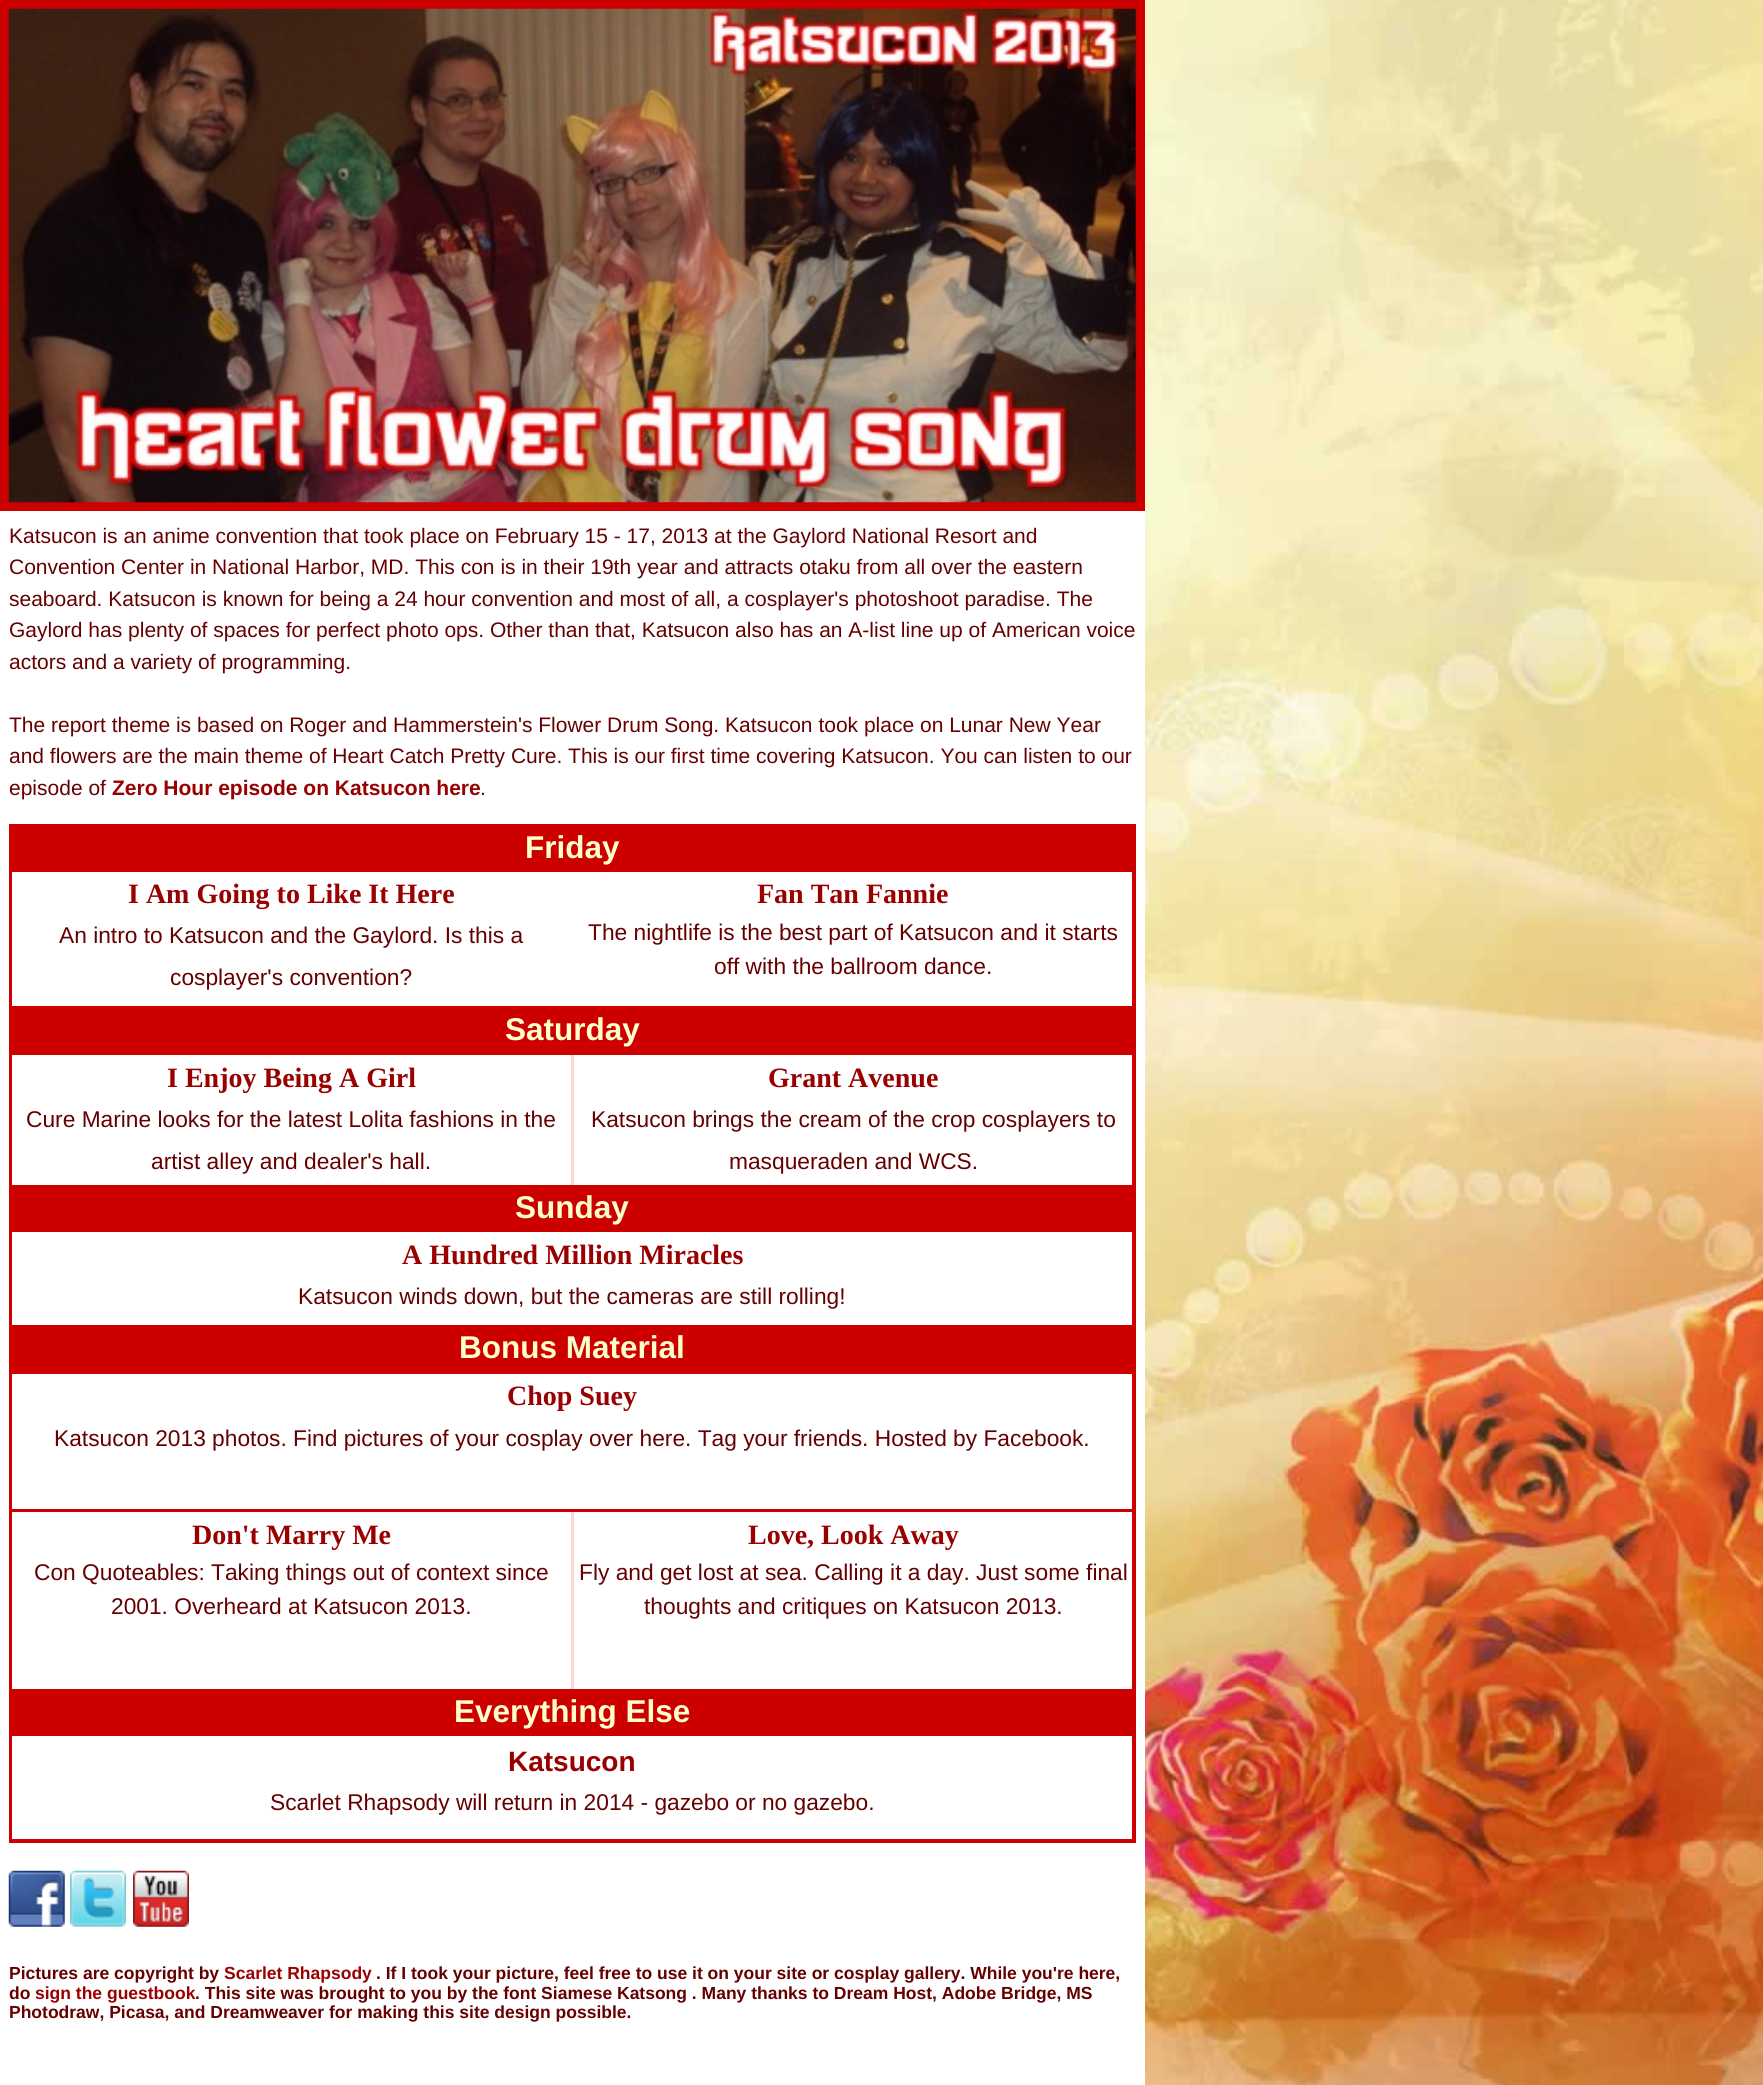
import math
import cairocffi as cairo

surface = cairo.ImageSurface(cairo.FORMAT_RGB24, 1763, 2085)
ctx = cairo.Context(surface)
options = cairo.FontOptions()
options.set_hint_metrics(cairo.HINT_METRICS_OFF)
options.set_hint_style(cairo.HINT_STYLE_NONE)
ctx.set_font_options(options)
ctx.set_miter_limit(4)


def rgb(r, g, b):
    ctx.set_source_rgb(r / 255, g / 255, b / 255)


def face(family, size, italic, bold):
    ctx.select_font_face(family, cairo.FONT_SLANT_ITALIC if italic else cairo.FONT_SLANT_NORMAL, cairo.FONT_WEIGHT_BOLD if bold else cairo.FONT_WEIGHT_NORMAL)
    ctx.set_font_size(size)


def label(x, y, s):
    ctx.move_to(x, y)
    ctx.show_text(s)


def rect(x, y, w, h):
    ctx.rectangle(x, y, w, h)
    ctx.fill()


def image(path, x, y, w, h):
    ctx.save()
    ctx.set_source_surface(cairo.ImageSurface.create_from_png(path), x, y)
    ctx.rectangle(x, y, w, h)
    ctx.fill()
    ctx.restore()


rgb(255, 255, 255)
ctx.paint()
image('image0.png', 1145, 0, 618, 2085)
rgb(204, 0, 0)
rect(0, 0, 1145, 511)
image('image1.png', 8, 8, 1128, 495)
face('Liberation Sans', 21, 0, 0)
rgb(102, 0, 0)
label(9, 543, 'Katsucon is an anime convention that took place on February 15 - 17, 2013 at the Gaylord National Resort and')
label(9, 574, 'Convention Center in National Harbor, MD. This con is in their 19th year and attracts otaku from all over the eastern')
label(9, 606, 'seaboard. Katsucon is known for being a 24 hour convention and most of all, a cosplayer\'s photoshoot paradise. The')
label(9, 637, 'Gaylord has plenty of spaces for perfect photo ops. Other than that, Katsucon also has an A-list line up of American voice')
label(9, 669, 'actors and a variety of programming.')
label(9, 732, 'The report theme is based on Roger and Hammerstein\'s Flower Drum Song. Katsucon took place on Lunar New Year')
label(9, 763, 'and flowers are the main theme of Heart Catch Pretty Cure. This is our first time covering Katsucon. You can listen to our')
label(9, 795, 'episode of')
face('Liberation Sans', 21, 0, 1)
rgb(153, 0, 0)
label(112, 795, 'Zero Hour episode on Katsucon here')
face('Liberation Sans', 21, 0, 0)
rgb(102, 0, 0)
label(480, 795, '.')
rgb(204, 0, 0)
rect(9, 824, 1127, 1019)
face('Liberation Sans', 31.5, 0, 1)
rgb(255, 255, 204)
label(525, 858, 'Friday')
rgb(255, 255, 255)
rect(12, 872, 1120, 134)
face('Liberation Serif', 28, 0, 1)
rgb(153, 0, 0)
label(128, 903, 'I Am Going to Like It Here')
face('Liberation Sans', 22.75, 0, 0)
rgb(102, 0, 0)
label(59, 943, 'An intro to Katsucon and the Gaylord. Is this a')
label(170, 985, 'cosplayer\'s convention?')
face('Liberation Serif', 28, 0, 1)
rgb(153, 0, 0)
label(757, 903, 'Fan Tan Fannie')
face('Liberation Sans', 22.75, 0, 0)
rgb(102, 0, 0)
label(588, 940, 'The nightlife is the best part of Katsucon and it starts')
label(714, 974, 'off with the ballroom dance.')
face('Liberation Sans', 31.5, 0, 1)
rgb(255, 255, 204)
label(505, 1040, 'Saturday')
rgb(255, 213, 213)
rect(571, 1055, 3, 130)
rgb(255, 255, 255)
rect(12, 1055, 559, 130)
face('Liberation Serif', 28, 0, 1)
rgb(153, 0, 0)
label(167, 1087, 'I Enjoy Being A Girl')
face('Liberation Sans', 22.75, 0, 0)
rgb(102, 0, 0)
label(26, 1127, 'Cure Marine looks for the latest Lolita fashions in the')
label(151, 1169, 'artist alley and dealer\'s hall.')
rgb(255, 255, 255)
rect(574, 1055, 558, 130)
face('Liberation Serif', 28, 0, 1)
rgb(153, 0, 0)
label(768, 1087, 'Grant Avenue')
face('Liberation Sans', 22.75, 0, 0)
rgb(102, 0, 0)
label(591, 1127, 'Katsucon brings the cream of the crop cosplayers to')
label(729, 1169, 'masqueraden and WCS.')
face('Liberation Sans', 31.5, 0, 1)
rgb(255, 255, 204)
label(515, 1218, 'Sunday')
rgb(255, 255, 255)
rect(12, 1232, 1120, 93)
face('Liberation Serif', 28, 0, 1)
rgb(153, 0, 0)
label(402, 1264, 'A Hundred Million Miracles')
face('Liberation Sans', 22.75, 0, 0)
rgb(102, 0, 0)
label(298, 1304, 'Katsucon winds down, but the cameras are still rolling!')
face('Liberation Sans', 31.5, 0, 1)
rgb(255, 255, 204)
label(459, 1358, 'Bonus Material')
rgb(255, 255, 255)
rect(12, 1374, 1120, 135)
face('Liberation Serif', 28, 0, 1)
rgb(153, 0, 0)
label(507, 1405, 'Chop Suey')
face('Liberation Sans', 22.75, 0, 0)
rgb(102, 0, 0)
label(54, 1446, 'Katsucon 2013 photos. Find pictures of your cosplay over here. Tag your friends. Hosted by Facebook.')
rgb(255, 213, 213)
rect(571, 1512, 3, 177)
rgb(255, 255, 255)
rect(12, 1512, 559, 177)
face('Liberation Serif', 28, 0, 1)
rgb(153, 0, 0)
label(192, 1544, 'Don\'t Marry Me')
face('Liberation Sans', 22.75, 0, 0)
rgb(102, 0, 0)
label(34, 1580, 'Con Quoteables: Taking things out of context since')
label(111, 1614, '2001. Overheard at Katsucon 2013.')
rgb(255, 255, 255)
rect(574, 1512, 558, 177)
face('Liberation Serif', 28, 0, 1)
rgb(153, 0, 0)
label(748, 1544, 'Love, Look Away')
face('Liberation Sans', 22.75, 0, 0)
rgb(102, 0, 0)
label(579, 1580, 'Fly and get lost at sea. Calling it a day. Just some final')
label(644, 1614, 'thoughts and critiques on Katsucon 2013.')
face('Liberation Sans', 31.5, 0, 1)
rgb(255, 255, 204)
label(454, 1722, 'Everything Else')
rgb(255, 255, 255)
rect(12, 1736, 1120, 103)
face('Liberation Sans', 28, 0, 1)
rgb(153, 0, 0)
label(508, 1771, 'Katsucon')
face('Liberation Sans', 22.75, 0, 0)
rgb(102, 0, 0)
label(270, 1810, 'Scarlet Rhapsody will return in 2014 - gazebo or no gazebo.')
image('image2.png', 8, 1870, 57, 57)
image('image3.png', 70, 1870, 56, 57)
image('image4.png', 133, 1870, 56, 57)
face('Liberation Sans', 17.5, 0, 1)
label(9, 1979, 'Pictures are copyright by')
rgb(153, 0, 0)
label(224, 1979, 'Scarlet Rhapsody')
rgb(102, 0, 0)
label(376, 1979, '. If I took your picture, feel free to use it on your site or cosplay gallery. While you\'re here,')
label(9, 1999, 'do')
rgb(153, 0, 0)
label(35, 1999, 'sign the guestbook')
rgb(102, 0, 0)
label(195, 1999, '. This site was brought to you by the font Siamese Katsong . Many thanks to Dream Host, Adobe Bridge, MS')
label(9, 2018, 'Photodraw, Picasa, and Dreamweaver for making this site design possible.')
surface.write_to_png('render.png')
